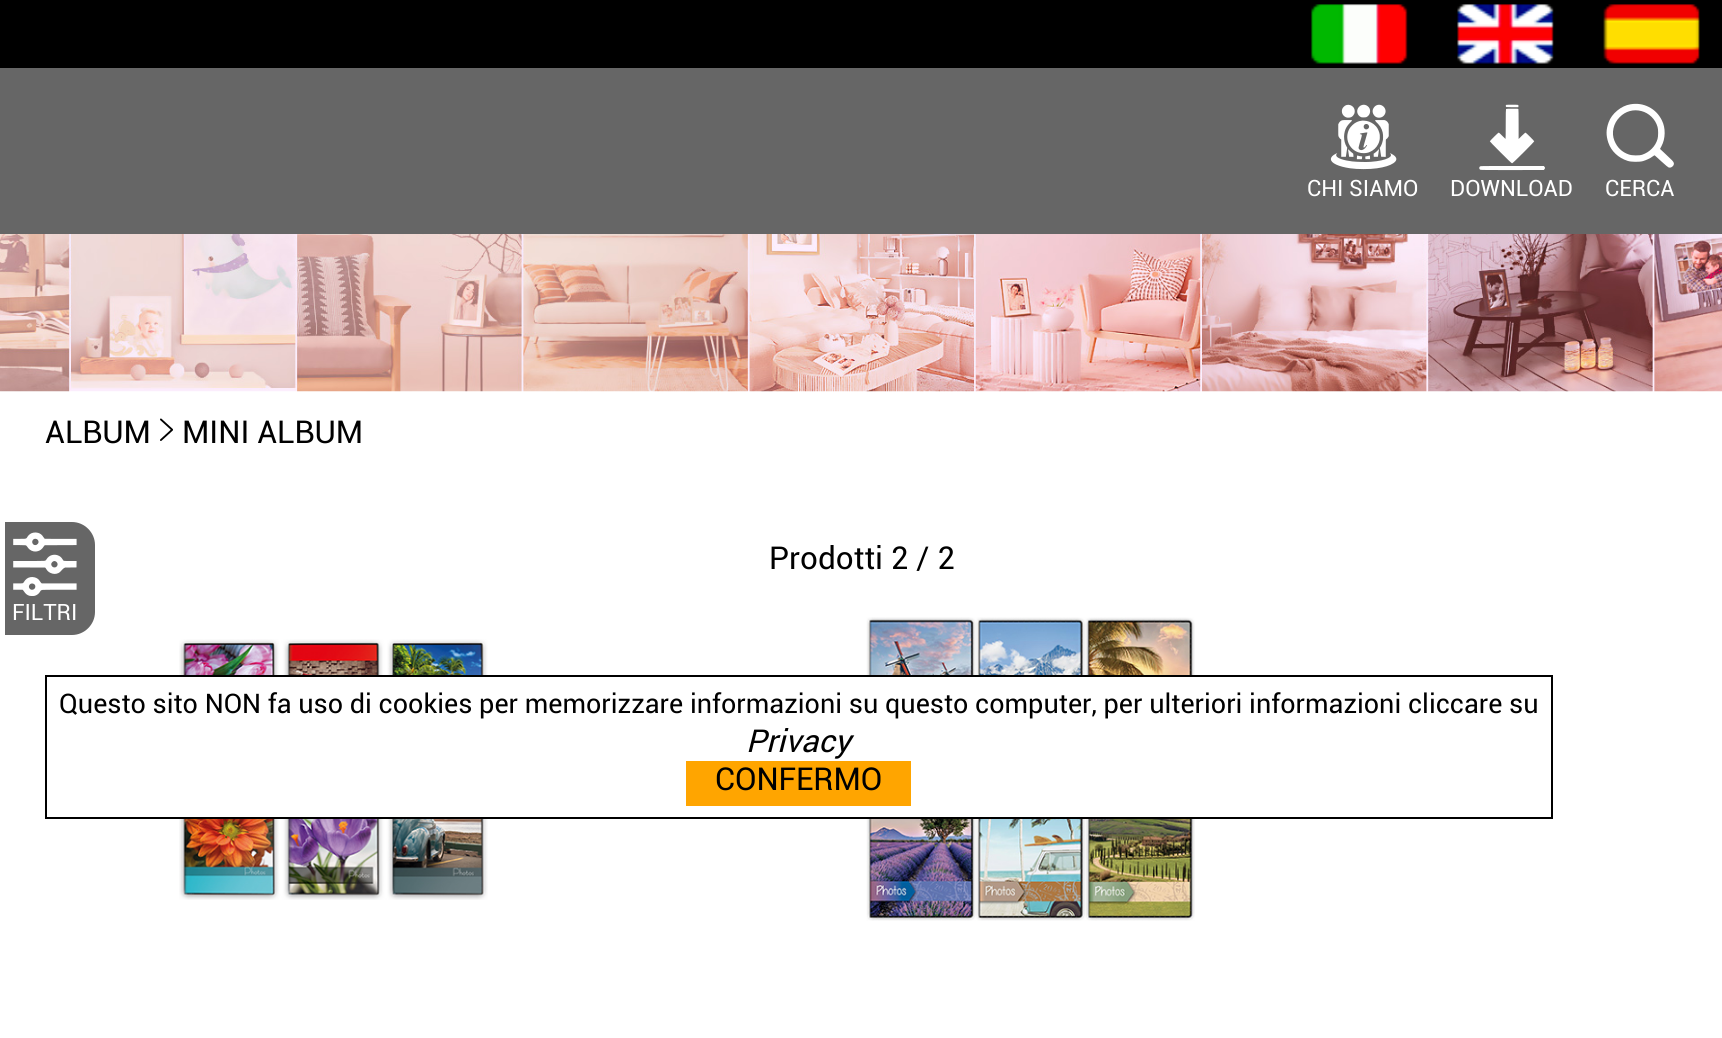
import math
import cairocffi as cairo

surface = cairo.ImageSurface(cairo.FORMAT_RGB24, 1722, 1038)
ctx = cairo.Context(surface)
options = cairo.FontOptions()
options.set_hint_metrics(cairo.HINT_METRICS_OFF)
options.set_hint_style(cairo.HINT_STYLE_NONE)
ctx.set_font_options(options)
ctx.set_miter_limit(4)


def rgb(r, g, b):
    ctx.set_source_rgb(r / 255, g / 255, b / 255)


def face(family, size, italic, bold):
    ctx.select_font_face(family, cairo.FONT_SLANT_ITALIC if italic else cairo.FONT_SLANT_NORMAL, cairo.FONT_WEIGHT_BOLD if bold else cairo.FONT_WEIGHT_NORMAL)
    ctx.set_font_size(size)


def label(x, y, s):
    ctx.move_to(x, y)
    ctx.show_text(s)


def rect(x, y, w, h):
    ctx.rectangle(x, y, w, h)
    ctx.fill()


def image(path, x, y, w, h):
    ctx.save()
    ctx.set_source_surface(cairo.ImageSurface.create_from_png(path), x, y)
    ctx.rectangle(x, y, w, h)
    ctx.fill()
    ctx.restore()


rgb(255, 255, 255)
ctx.paint()
rgb(0, 0, 0)
rect(0, 0, 1722, 68)
image('image0.png', 1311, 4, 97, 60)
image('image1.png', 1457, 4, 97, 60)
image('image2.png', 1603, 4, 97, 60)
rgb(102, 102, 102)
rect(0, 68, 1722, 166)
image('image3.png', 1330, 104, 67, 66)
face('Roboto', 22.5, 0, 0)
rgb(255, 255, 255)
label(1307, 196, 'CHI SIAMO')
image('image4.png', 1479, 104, 66, 67)
label(1450, 196, 'DOWNLOAD')
image('image5.png', 1606, 103, 68, 65)
label(1605, 196, 'CERCA')
image('image6.png', 0, 234, 1722, 158)
face('Roboto', 31.5, 0, 0)
rgb(0, 0, 0)
label(45, 443, 'ALBUM')
image('image7.png', 160, 418, 13, 23)
label(182, 443, 'MINI ALBUM')
label(769, 569, 'Prodotti 2 / 2')
rgb(102, 102, 102)
ctx.new_path()
ctx.move_to(5, 522)
ctx.line_to(72, 522)
ctx.curve_to(84.5, 522, 95, 532.5, 95, 545)
ctx.line_to(95, 612)
ctx.curve_to(95, 624.5, 84.5, 635, 72, 635)
ctx.line_to(5, 635)
ctx.close_path()
ctx.fill()
image('image8.png', 13, 532, 64, 64)
face('Roboto', 22.5, 0, 0)
rgb(255, 255, 255)
label(12, 620, 'FILTRI')
image('image9.png', 179, 639, 309, 261)
image('image10.png', 866, 617, 329, 304)
rect(179, 677, 1016, 140)
ctx.rectangle(46, 676, 1506, 142)
rgb(0, 0, 0)
ctx.stroke()
face('Roboto', 27, 0, 0)
label(59, 713, 'Questo sito NON fa uso di cookies per memorizzare informazioni su questo computer, per ulteriori informazioni cliccare su')
face('Roboto', 31.5, 1, 0)
label(746, 752, 'Privacy')
rgb(255, 165, 0)
rect(686, 761, 225, 45)
face('Roboto', 31.5, 0, 0)
rgb(0, 0, 0)
label(715, 790, 'CONFERMO')
surface.write_to_png('render.png')
